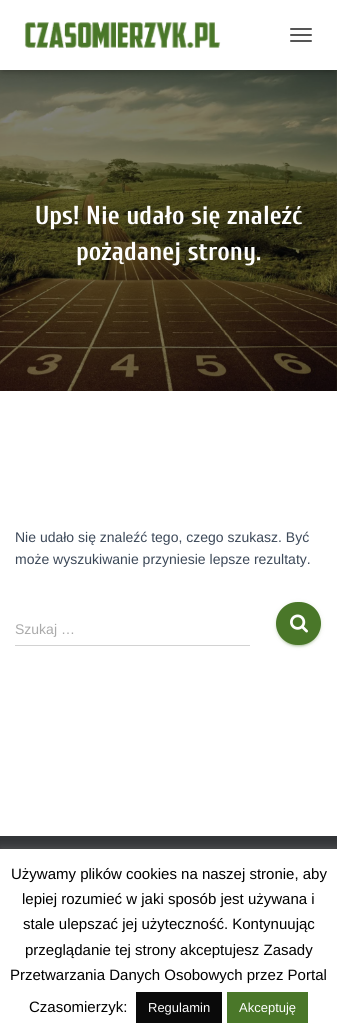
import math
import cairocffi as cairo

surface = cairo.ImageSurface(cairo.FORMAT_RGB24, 337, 1035)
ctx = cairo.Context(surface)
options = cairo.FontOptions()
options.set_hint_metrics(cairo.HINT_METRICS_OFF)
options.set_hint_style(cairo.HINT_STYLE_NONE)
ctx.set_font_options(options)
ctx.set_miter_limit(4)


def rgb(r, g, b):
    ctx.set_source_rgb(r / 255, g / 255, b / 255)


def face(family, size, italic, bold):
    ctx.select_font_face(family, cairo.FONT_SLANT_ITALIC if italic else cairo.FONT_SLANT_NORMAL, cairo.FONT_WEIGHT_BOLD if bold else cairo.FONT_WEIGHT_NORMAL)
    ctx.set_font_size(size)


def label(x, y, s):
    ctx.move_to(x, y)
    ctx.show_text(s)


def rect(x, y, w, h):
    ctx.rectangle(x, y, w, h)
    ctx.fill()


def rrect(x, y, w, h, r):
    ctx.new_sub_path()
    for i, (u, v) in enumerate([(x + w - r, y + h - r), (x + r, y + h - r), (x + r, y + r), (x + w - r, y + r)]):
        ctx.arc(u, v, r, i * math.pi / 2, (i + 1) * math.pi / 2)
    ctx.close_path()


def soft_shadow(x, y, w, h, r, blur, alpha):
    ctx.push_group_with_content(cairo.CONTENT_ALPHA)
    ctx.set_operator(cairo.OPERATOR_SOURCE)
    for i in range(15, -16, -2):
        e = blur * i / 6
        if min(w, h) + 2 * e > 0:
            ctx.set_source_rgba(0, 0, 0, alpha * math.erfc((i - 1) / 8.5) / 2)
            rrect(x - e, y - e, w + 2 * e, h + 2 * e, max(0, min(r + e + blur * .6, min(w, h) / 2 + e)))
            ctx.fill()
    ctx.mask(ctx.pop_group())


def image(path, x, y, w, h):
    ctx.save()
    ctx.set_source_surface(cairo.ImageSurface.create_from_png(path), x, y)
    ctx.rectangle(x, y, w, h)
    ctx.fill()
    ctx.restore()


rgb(255, 255, 255)
ctx.paint()
image('image0.png', 336, 70, 1, 321)
image('image2.png', 0, 70, 337, 321)
ctx.set_source_rgba(0, 0, 0, 0.5)
rect(0, 70, 337, 321)
rgb(0, 0, 0)
soft_shadow(2, 6, 333, 66, 0, 2.5, 0.1)
soft_shadow(0, 1, 337, 70, 0, 5, 0.12)
soft_shadow(6, 7, 325, 58, 0, 5, 0.42)
rgb(255, 255, 255)
rect(0, 0, 337, 70)
image('image1.png', 24, 22, 197, 26)
rgb(85, 85, 85)
rrect(290, 28, 22, 2, 1)
ctx.fill()
rrect(290, 34, 22, 2, 1)
ctx.fill()
rrect(290, 40, 22, 2, 1)
ctx.fill()
face('Cuprum', 26, 0, 1)
rgb(255, 255, 255)
label(35, 224, 'Ups! Nie udało się znaleźć')
label(76, 260, 'pożądanej strony.')
face('Liberation Sans', 14, 0, 0)
rgb(60, 72, 88)
label(15, 542, 'Nie udało się znaleźć tego, czego szukasz. Być')
label(15, 564, 'może wyszukiwanie przyniesie lepsze rezultaty.')
rgb(170, 170, 170)
label(15, 634, 'Szukaj …')
rgb(210, 210, 210)
rect(15, 645, 235, 1)
rgb(74, 119, 41)
soft_shadow(276, 603, 45, 43, 21.5, 2.5, 0.12)
soft_shadow(278, 607, 41, 39, 19.5, 0.5, 0.2)
soft_shadow(276, 604, 45, 43, 21.5, 1, 0.14)
rgb(74, 119, 41)
rrect(276, 602, 45, 43, 21.5)
ctx.fill()
image('image3.png', 290, 614, 18, 19)
rgb(50, 52, 55)
rect(0, 836, 337, 13)
rgb(172, 171, 171)
soft_shadow(0, 848, 337, 186, 0, 5, 0.3)
rgb(255, 255, 255)
rect(0, 849, 337, 186)
face('Liberation Sans', 15, 0, 0)
rgb(0, 0, 0)
label(11, 879, 'Używamy plików cookies na naszej stronie, aby')
label(22, 904, 'lepiej rozumieć w jaki sposób jest używana i')
label(23, 929, 'stale ulepszać jej użyteczność. Kontynuując')
label(25, 955, 'przeglądanie tej strony akceptujesz Zasady')
label(10, 980, 'Przetwarzania Danych Osobowych przez Portal')
label(29, 1012, 'Czasomierzyk:')
rgb(10, 10, 10)
rect(136, 992, 86, 31)
face('Liberation Sans', 13, 0, 0)
rgb(255, 255, 255)
label(148, 1012, 'Regulamin')
rgb(74, 119, 41)
rect(227, 992, 81, 31)
rgb(255, 255, 255)
label(239, 1012, 'Akceptuję')
surface.write_to_png('render.png')
